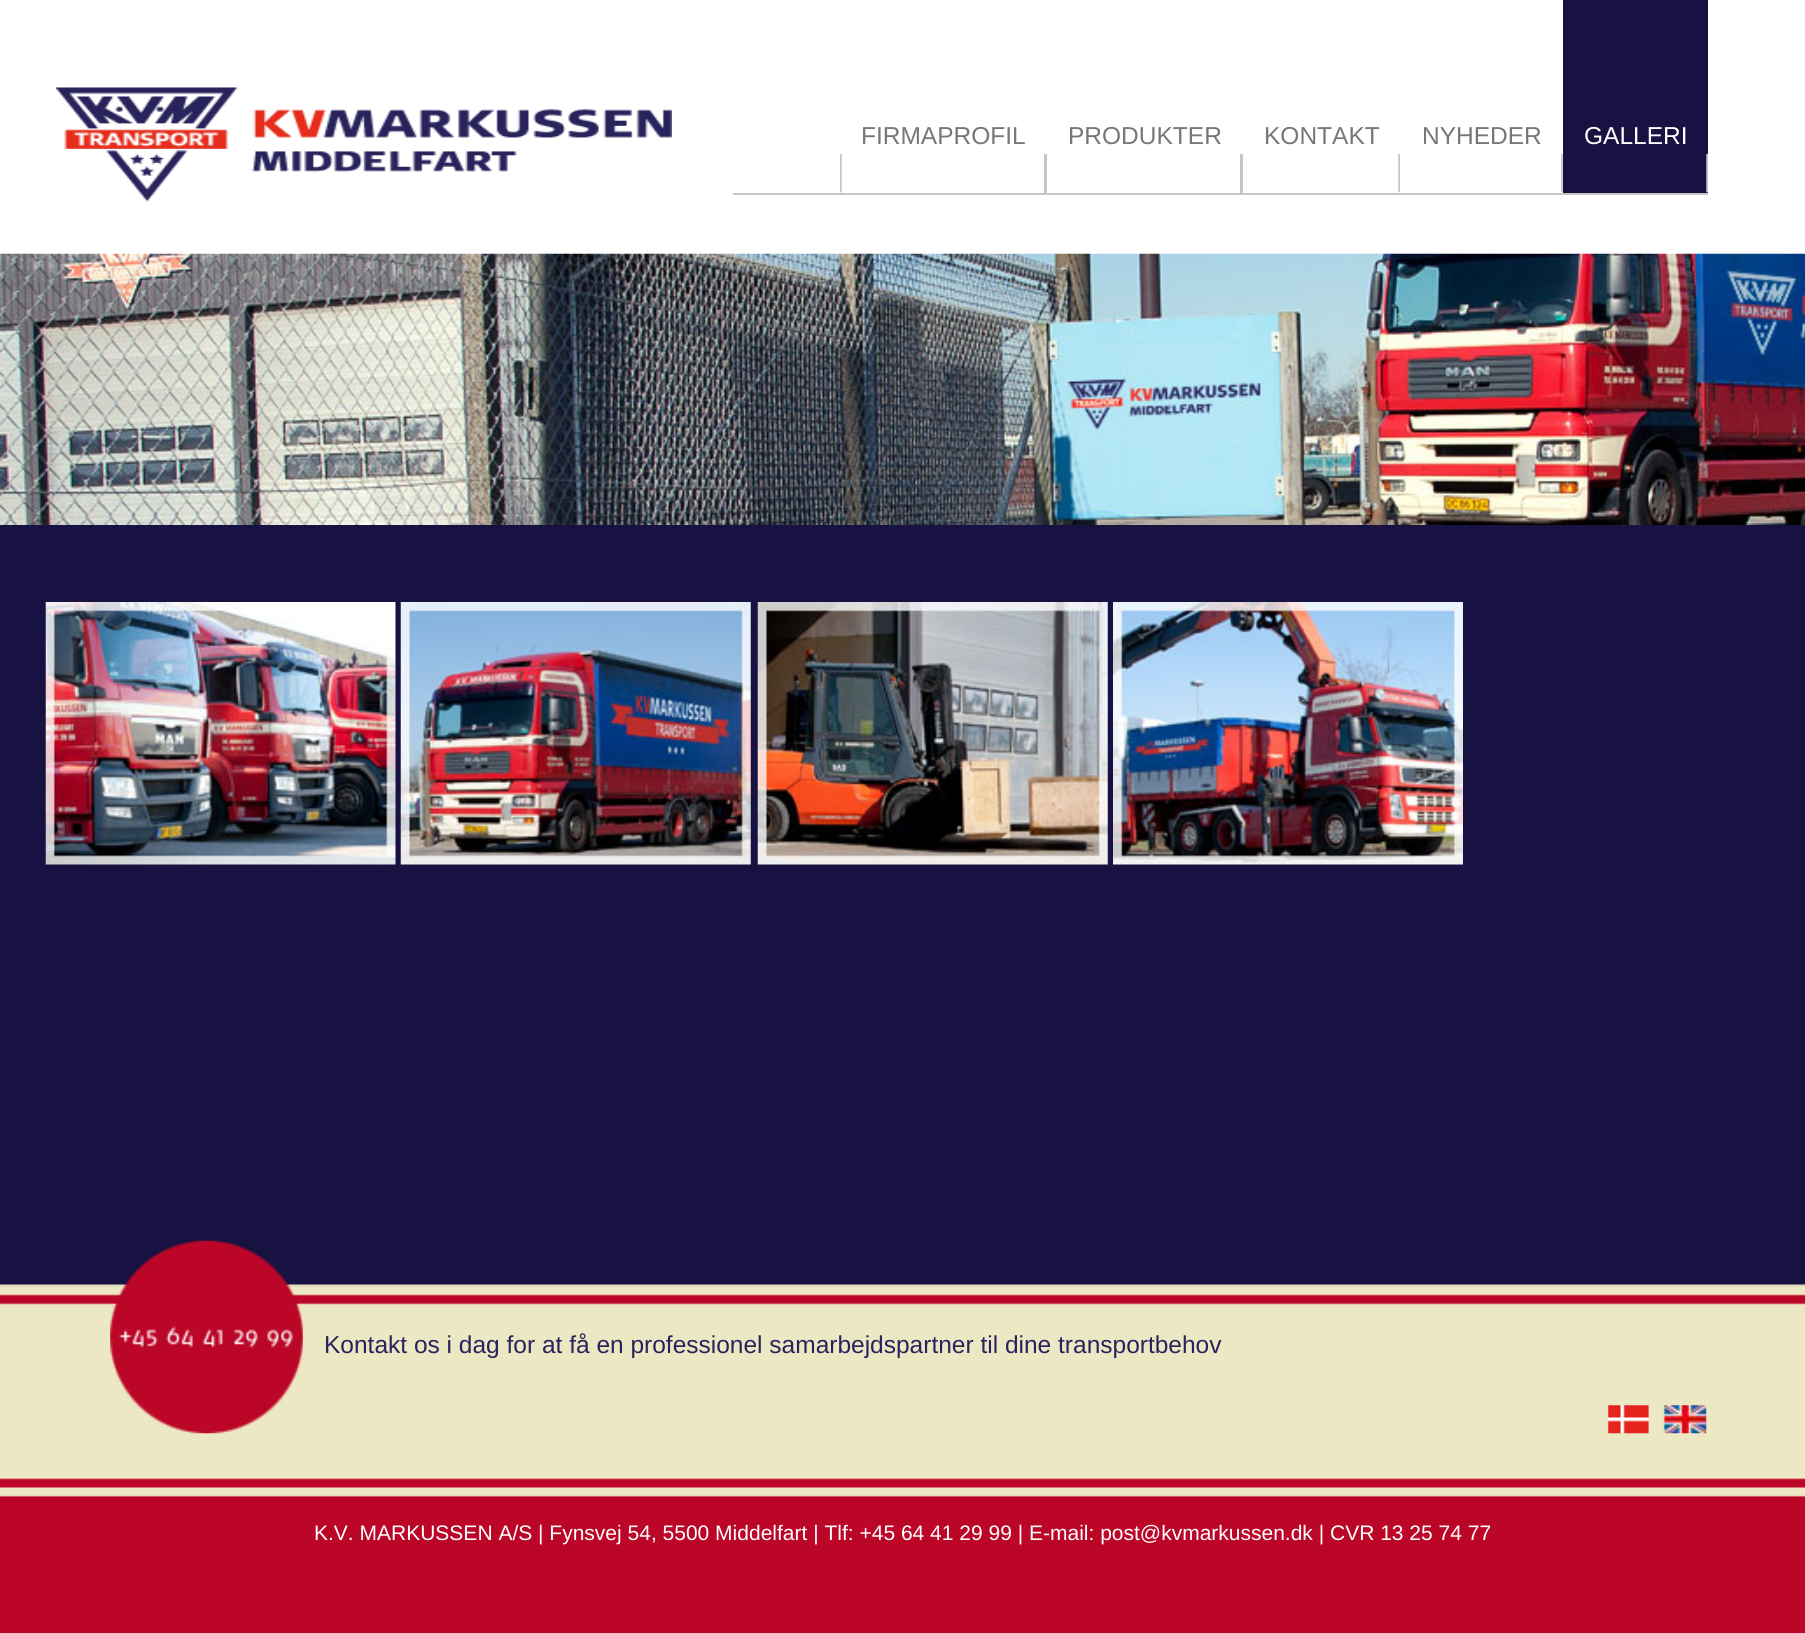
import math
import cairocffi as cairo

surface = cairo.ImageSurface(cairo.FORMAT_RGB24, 1805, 1633)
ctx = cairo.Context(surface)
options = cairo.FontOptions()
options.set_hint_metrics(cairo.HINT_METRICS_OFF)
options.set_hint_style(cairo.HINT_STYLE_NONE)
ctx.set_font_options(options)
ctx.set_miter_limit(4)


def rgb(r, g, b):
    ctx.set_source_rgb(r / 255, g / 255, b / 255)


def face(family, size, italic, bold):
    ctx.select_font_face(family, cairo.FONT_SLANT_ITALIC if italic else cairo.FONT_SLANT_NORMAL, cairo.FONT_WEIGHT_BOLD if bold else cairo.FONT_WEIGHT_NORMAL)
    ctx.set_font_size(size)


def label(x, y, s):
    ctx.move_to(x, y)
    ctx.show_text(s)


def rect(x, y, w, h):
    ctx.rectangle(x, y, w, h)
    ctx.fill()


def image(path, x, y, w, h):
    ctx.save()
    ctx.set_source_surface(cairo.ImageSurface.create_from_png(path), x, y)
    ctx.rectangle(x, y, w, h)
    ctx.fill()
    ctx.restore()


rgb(23, 18, 65)
ctx.paint()
rgb(255, 255, 255)
rect(0, 0, 1805, 254)
image('image0.png', 56, 87, 616, 115)
rgb(198, 198, 198)
rect(733, 193, 975, 2)
image('image1.png', 840, 154, 2, 39)
rect(1044, 154, 3, 39)
face('Liberation Sans', 24.5, 0, 0)
rgb(119, 119, 119)
label(861, 144, 'FIRMAPROFIL')
rgb(198, 198, 198)
rect(1240, 154, 3, 39)
rgb(119, 119, 119)
label(1068, 144, 'PRODUKTER')
image('image2.png', 1398, 154, 2, 39)
label(1264, 144, 'KONTAKT')
image('image3.png', 1561, 154, 2, 39)
label(1422, 144, 'NYHEDER')
rgb(23, 18, 65)
rect(1563, 0, 145, 193)
image('image4.png', 1706, 154, 2, 39)
rgb(255, 255, 255)
label(1584, 144, 'GALLERI')
image('image5.png', 0, 253, 1805, 272)
image('image6.png', 45, 602, 351, 263)
image('image7.png', 400, 602, 351, 263)
image('image8.png', 757, 602, 351, 263)
image('image9.png', 1113, 602, 350, 263)
image('image10.png', 0, 1284, 1805, 349)
image('image11.png', 110, 1240, 193, 194)
rgb(41, 35, 92)
label(324, 1353, 'Kontakt os i dag for at få en professionel samarbejdspartner til dine transportbehov')
image('image12.png', 1608, 1405, 99, 29)
face('Liberation Sans', 21, 0, 0)
rgb(255, 255, 255)
label(314, 1540, 'K.V. MARKUSSEN A/S | Fynsvej 54, 5500 Middelfart | Tlf: +45 64 41 29 99 | E-mail: post@kvmarkussen.dk | CVR 13 25 74 77')
surface.write_to_png('render.png')
